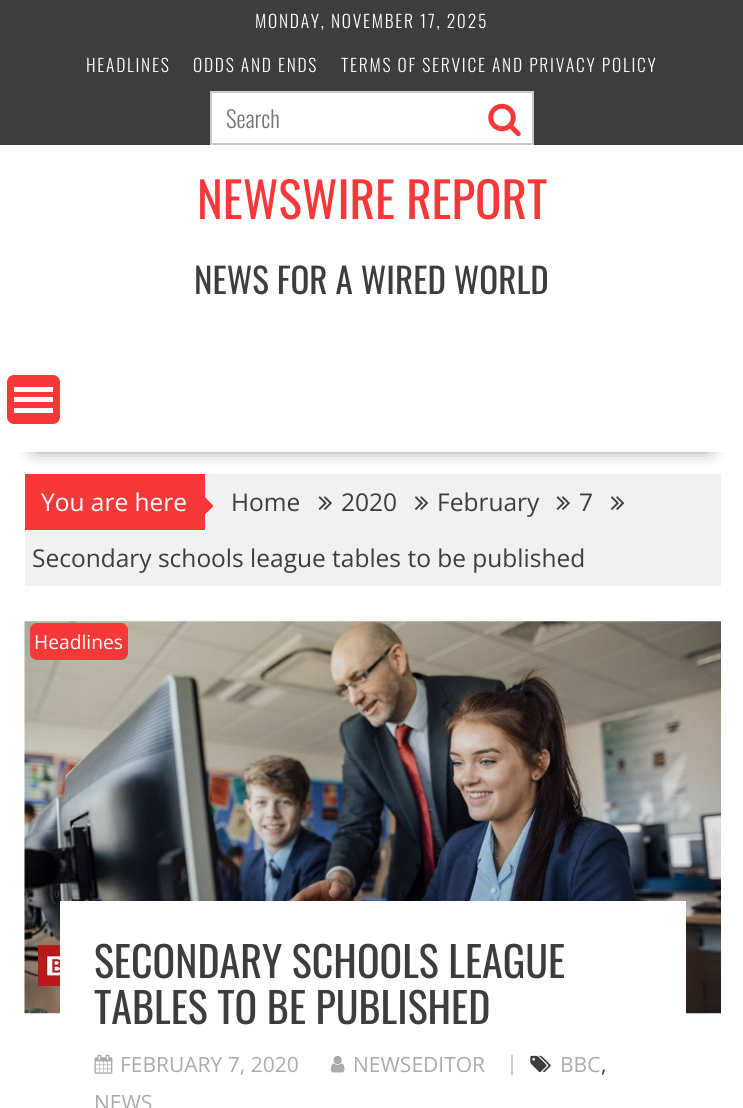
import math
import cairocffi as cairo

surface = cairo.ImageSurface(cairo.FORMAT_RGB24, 743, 1108)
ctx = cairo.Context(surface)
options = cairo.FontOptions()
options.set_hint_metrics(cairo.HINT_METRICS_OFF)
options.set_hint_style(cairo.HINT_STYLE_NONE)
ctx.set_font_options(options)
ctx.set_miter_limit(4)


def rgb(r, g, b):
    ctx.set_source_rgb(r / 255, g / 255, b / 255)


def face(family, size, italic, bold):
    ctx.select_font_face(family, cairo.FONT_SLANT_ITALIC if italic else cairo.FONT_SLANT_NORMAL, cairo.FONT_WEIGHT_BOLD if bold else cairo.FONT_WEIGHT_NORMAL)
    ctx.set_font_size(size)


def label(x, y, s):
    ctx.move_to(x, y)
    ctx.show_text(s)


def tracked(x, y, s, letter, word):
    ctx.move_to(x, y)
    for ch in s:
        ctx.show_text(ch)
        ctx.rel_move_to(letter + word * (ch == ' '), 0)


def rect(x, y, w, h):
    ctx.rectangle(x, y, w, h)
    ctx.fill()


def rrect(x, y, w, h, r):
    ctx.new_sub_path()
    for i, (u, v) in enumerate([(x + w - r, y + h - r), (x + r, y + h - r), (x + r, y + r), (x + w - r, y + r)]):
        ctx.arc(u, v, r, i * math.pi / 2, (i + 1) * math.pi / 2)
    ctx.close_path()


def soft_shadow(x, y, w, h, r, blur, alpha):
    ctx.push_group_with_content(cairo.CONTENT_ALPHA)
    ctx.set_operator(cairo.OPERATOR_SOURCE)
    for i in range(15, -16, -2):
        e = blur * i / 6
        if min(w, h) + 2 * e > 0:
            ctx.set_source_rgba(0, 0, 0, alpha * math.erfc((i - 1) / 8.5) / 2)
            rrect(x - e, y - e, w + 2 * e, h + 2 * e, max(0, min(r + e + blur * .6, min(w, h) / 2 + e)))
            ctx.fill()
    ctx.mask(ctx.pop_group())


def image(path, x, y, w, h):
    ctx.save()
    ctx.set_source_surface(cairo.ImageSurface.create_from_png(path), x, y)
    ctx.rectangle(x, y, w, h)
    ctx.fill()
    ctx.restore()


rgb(255, 255, 255)
ctx.paint()
rgb(61, 61, 61)
rect(0, 0, 743, 145)
face('Oswald Light', 17.5, 0, 0)
rgb(255, 255, 255)
tracked(255, 28, 'MONDAY, NOVEMBER 17, 2025', 1.75, 0)
tracked(86, 72, 'HEADLINES', 1.75, 0)
tracked(193, 72, 'ODDS AND ENDS', 1.75, 0)
tracked(341, 72, 'TERMS OF SERVICE AND PRIVACY POLICY', 1.75, 0)
ctx.rectangle(211, 92, 322, 52)
ctx.fill_preserve()
rgb(204, 204, 204)
ctx.stroke()
face('Oswald Light', 23, 0, 0)
rgb(117, 117, 117)
label(226, 128, 'Search')
image('image0.png', 488, 103, 33, 34)
face('Oswald', 49, 0, 0)
rgb(247, 56, 56)
label(197, 219, 'NEWSWIRE REPORT')
face('Oswald', 35, 0, 0)
rgb(61, 61, 61)
label(194, 294, 'NEWS FOR A WIRED WORLD')
rgb(241, 241, 241)
rect(25, 474, 696, 112)
ctx.save()
ctx.set_fill_rule(cairo.FILL_RULE_EVEN_ODD)
ctx.new_path()
ctx.move_to(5, 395)
ctx.line_to(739, 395)
ctx.line_to(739, 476)
ctx.line_to(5, 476)
ctx.close_path()
ctx.move_to(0, 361)
ctx.line_to(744, 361)
ctx.line_to(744, 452)
ctx.line_to(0, 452)
ctx.close_path()
ctx.clip()
rgb(0, 0, 0)
soft_shadow(35, 425, 674, 21, 0, 9.5, 0.75)
ctx.restore()
rgb(247, 56, 56)
rrect(8, 376, 51, 47, 6)
ctx.fill_preserve()
ctx.stroke()
rgb(255, 255, 255)
rect(14, 408, 39, 5)
rect(14, 397, 39, 5)
rect(14, 387, 39, 5)
face('Open Sans', 24.5, 0, 0)
rgb(61, 61, 61)
label(231, 511, 'Home')
image('image1.png', 318, 496, 14, 14)
label(341, 511, '2020')
image('image2.png', 415, 496, 14, 14)
label(437, 511, 'February')
image('image1.png', 556, 496, 14, 14)
label(579, 511, '7')
image('image2.png', 611, 496, 14, 14)
label(32, 567, 'Secondary schools league tables to be published')
rgb(247, 56, 56)
rect(25, 474, 180, 56)
rgb(255, 255, 255)
label(41, 511, 'You are here')
rgb(247, 56, 56)
ctx.new_path()
ctx.move_to(205, 514.5)
ctx.line_to(205, 497)
ctx.line_to(213.5, 506)
ctx.close_path()
ctx.fill()
image('image3.png', 24, 621, 697, 393)
rrect(30, 623, 98, 37, 7)
ctx.fill()
face('Open Sans', 19.25, 0, 0)
rgb(255, 255, 255)
label(34, 649, 'Headlines')
rect(60, 901, 626, 113)
face('Oswald', 42, 0, 0)
rgb(61, 61, 61)
label(94, 978, 'SECONDARY SCHOOLS LEAGUE')
label(94, 1024, 'TABLES TO BE PUBLISHED')
rgb(204, 204, 204)
rect(511, 1055, 2, 20)
image('image4.png', 530, 1055, 21, 18)
face('Open Sans', 21, 0, 0)
rgb(170, 170, 170)
label(560, 1072, 'BBC')
rgb(61, 61, 61)
label(601, 1072, ',')
rgb(170, 170, 170)
label(94, 1110, 'NEWS')
image('image5.png', 94, 1054, 19, 20)
label(120, 1072, 'FEBRUARY 7, 2020')
image('image6.png', 330, 1055, 15, 18)
label(353, 1072, 'NEWSEDITOR')
surface.write_to_png('render.png')
